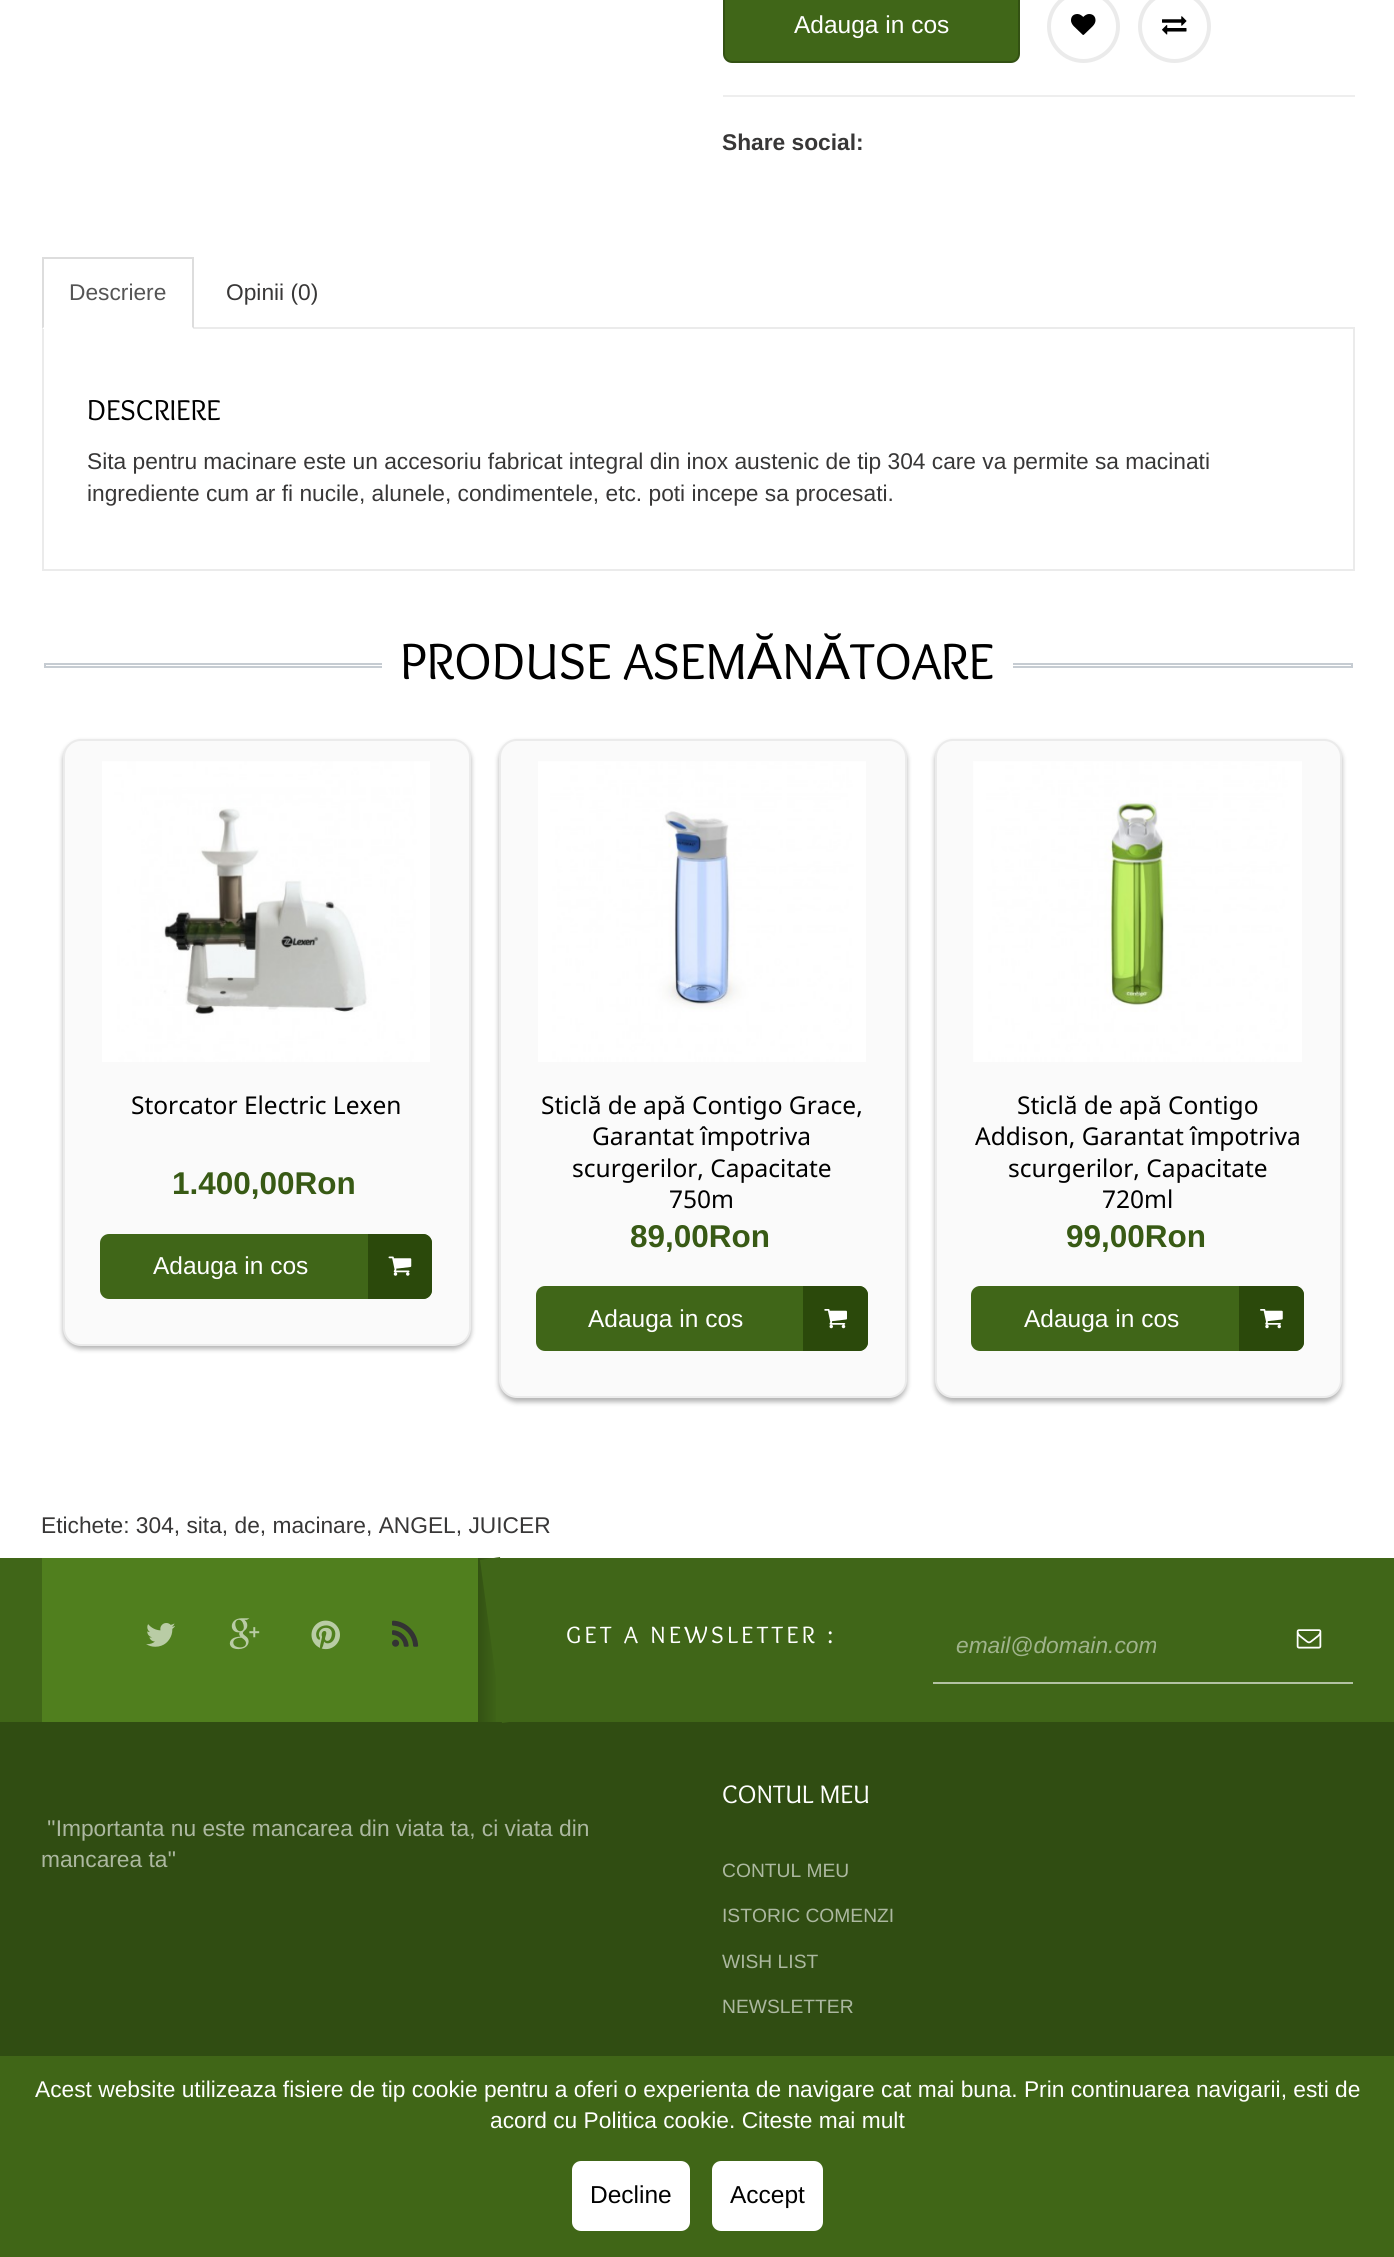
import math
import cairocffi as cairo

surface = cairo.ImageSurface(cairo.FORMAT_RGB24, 1394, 2257)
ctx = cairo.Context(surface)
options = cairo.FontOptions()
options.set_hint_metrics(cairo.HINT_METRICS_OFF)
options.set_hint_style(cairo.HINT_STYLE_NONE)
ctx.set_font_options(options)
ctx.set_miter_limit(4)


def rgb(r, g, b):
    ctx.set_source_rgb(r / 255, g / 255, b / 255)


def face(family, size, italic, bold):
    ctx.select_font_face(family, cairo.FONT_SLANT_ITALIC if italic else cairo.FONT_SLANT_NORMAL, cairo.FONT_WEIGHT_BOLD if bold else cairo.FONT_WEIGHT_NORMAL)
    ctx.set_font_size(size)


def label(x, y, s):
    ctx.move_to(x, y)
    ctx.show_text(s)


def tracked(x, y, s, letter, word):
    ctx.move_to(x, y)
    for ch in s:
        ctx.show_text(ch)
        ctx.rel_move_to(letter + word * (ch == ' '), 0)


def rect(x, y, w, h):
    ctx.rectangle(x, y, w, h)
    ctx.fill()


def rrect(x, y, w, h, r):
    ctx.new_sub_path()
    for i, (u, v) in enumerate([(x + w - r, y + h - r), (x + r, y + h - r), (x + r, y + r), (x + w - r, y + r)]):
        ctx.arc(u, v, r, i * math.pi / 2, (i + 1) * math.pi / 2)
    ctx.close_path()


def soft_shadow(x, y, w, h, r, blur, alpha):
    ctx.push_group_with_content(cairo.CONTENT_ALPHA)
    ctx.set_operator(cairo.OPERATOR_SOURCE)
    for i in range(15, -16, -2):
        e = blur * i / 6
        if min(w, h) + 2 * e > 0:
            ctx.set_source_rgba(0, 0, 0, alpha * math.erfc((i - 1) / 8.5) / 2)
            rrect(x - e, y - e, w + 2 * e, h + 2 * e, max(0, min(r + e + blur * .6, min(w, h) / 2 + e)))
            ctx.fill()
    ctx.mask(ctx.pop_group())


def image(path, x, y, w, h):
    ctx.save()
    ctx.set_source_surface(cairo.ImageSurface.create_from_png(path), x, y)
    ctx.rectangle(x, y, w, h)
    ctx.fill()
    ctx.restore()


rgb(255, 255, 255)
ctx.paint()
rgb(64, 102, 24)
rrect(724, -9, 295, 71, 8)
ctx.fill_preserve()
rgb(51, 81, 19)
ctx.stroke()
face('Liberation Sans', 24.5, 0, 0)
rgb(255, 255, 255)
label(794, 33, 'Adauga in cos')
ctx.new_path()
ctx.arc(1083.5, 26.5, 34.5, 0, 2 * math.pi)
rgb(235, 235, 235)
ctx.set_line_width(4)
ctx.stroke()
image('image0.png', 1071, 14, 25, 21)
ctx.arc(1174.5, 26.5, 34.5, 0, 2 * math.pi)
ctx.stroke()
image('image1.png', 1162, 16, 25, 19)
rgb(238, 238, 238)
rect(723, 95, 632, 2)
face('Liberation Sans', 22.75, 0, 1)
rgb(56, 55, 55)
label(722, 150, 'Share social:')
ctx.rectangle(43, 328, 1311, 242)
rgb(235, 235, 235)
ctx.set_line_width(2)
ctx.stroke()
rgb(255, 255, 255)
rect(42, 327, 152, 2)
rgb(221, 221, 221)
rect(42, 257, 152, 2)
ctx.new_path()
ctx.move_to(194, 257)
ctx.line_to(194, 329)
ctx.line_to(192, 327)
ctx.line_to(192, 259)
ctx.close_path()
ctx.fill()
ctx.new_path()
ctx.move_to(42, 329)
ctx.line_to(42, 257)
ctx.line_to(44, 259)
ctx.line_to(44, 327)
ctx.close_path()
ctx.fill()
face('Liberation Sans', 22.75, 0, 0)
rgb(85, 85, 85)
label(69, 300, 'Descriere')
rgb(56, 55, 55)
label(226, 300, 'Opinii (0)')
face('Overlock', 29.75, 0, 0)
rgb(0, 0, 0)
label(87, 420, 'DESCRIERE')
face('Liberation Sans', 22.75, 0, 0)
rgb(56, 55, 55)
label(87, 469, 'Sita pentru macinare este un accesoriu fabricat integral din inox austenic de tip 304 care va permite sa macinati')
label(87, 501, 'ingrediente cum ar fi nucile, alunele, condimentele, etc. poti incepe sa procesati.')
ctx.rectangle(45, 664, 1307, 3)
rgb(198, 204, 210)
ctx.stroke()
rgb(255, 255, 255)
rect(382, 663, 631, 5)
face('Overlock', 52.5, 0, 0)
rgb(0, 0, 0)
label(400, 679, 'PRODUSE ASEM')
face('Liberation Sans', 52.5, 0, 0)
label(747, 679, 'Ă')
face('Overlock', 52.5, 0, 0)
label(782, 679, 'N')
face('Liberation Sans', 52.5, 0, 0)
label(815, 679, 'Ă')
face('Overlock', 52.5, 0, 0)
label(850, 679, 'TOARE')
rgb(0, 0, 0)
soft_shadow(63, 742, 408, 607, 18, 2.5, 0.3)
rgb(250, 250, 250)
rrect(64, 740, 406, 605, 17)
ctx.fill_preserve()
rgb(235, 235, 235)
ctx.stroke()
image('image2.png', 102, 761, 328, 301)
face('Noto Sans', 24.5, 0, 0)
rgb(0, 0, 0)
label(131, 1114, 'Storcator Electric Lexen')
face('Liberation Sans', 31.5, 0, 1)
rgb(56, 90, 21)
label(172, 1194, '1.400,00Ron')
rgb(64, 102, 24)
rrect(100, 1234, 332, 65, 9)
ctx.fill()
face('Liberation Sans', 24.5, 0, 0)
rgb(255, 255, 255)
label(153, 1274, 'Adauga in cos')
rgb(43, 73, 11)
ctx.new_path()
ctx.move_to(368, 1234)
ctx.line_to(423, 1234)
ctx.curve_to(428, 1234, 432, 1238, 432, 1243)
ctx.line_to(432, 1290)
ctx.curve_to(432, 1295, 428, 1299, 423, 1299)
ctx.line_to(368, 1299)
ctx.close_path()
ctx.fill()
image('image3.png', 388, 1256, 24, 20)
rgb(0, 0, 0)
soft_shadow(499, 742, 408, 660, 18, 2.5, 0.3)
rgb(250, 250, 250)
rrect(500, 740, 406, 657, 17)
ctx.fill_preserve()
rgb(235, 235, 235)
ctx.stroke()
image('image4.png', 538, 761, 328, 301)
face('Noto Sans', 24.5, 0, 0)
rgb(0, 0, 0)
label(541, 1114, 'Sticlă de apă Contigo Grace,')
label(592, 1145, 'Garantat împotriva')
label(572, 1177, 'scurgerilor, Capacitate')
label(669, 1208, '750m')
face('Liberation Sans', 31.5, 0, 1)
rgb(56, 90, 21)
label(630, 1247, '89,00Ron')
rgb(64, 102, 24)
rrect(536, 1286, 332, 65, 9)
ctx.fill()
face('Liberation Sans', 24.5, 0, 0)
rgb(255, 255, 255)
label(588, 1327, 'Adauga in cos')
rgb(43, 73, 11)
ctx.new_path()
ctx.move_to(803, 1286)
ctx.line_to(859, 1286)
ctx.curve_to(864, 1286, 868, 1290, 868, 1295)
ctx.line_to(868, 1342)
ctx.curve_to(868, 1347, 864, 1351, 859, 1351)
ctx.line_to(803, 1351)
ctx.close_path()
ctx.fill()
image('image5.png', 824, 1309, 23, 20)
rgb(0, 0, 0)
soft_shadow(935, 742, 407, 660, 18, 2.5, 0.3)
rgb(250, 250, 250)
rrect(936, 740, 405, 657, 17)
ctx.fill_preserve()
rgb(235, 235, 235)
ctx.stroke()
image('image6.png', 973, 761, 329, 301)
face('Noto Sans', 24.5, 0, 0)
rgb(0, 0, 0)
label(1017, 1114, 'Sticlă de apă Contigo')
label(975, 1145, 'Addison, Garantat împotriva')
label(1008, 1177, 'scurgerilor, Capacitate')
label(1102, 1208, '720ml')
face('Liberation Sans', 31.5, 0, 1)
rgb(56, 90, 21)
label(1066, 1247, '99,00Ron')
rgb(64, 102, 24)
rrect(971, 1286, 333, 65, 9)
ctx.fill()
face('Liberation Sans', 24.5, 0, 0)
rgb(255, 255, 255)
label(1024, 1327, 'Adauga in cos')
rgb(43, 73, 11)
ctx.new_path()
ctx.move_to(1239, 1286)
ctx.line_to(1295, 1286)
ctx.curve_to(1300, 1286, 1304, 1290, 1304, 1295)
ctx.line_to(1304, 1342)
ctx.curve_to(1304, 1347, 1300, 1351, 1295, 1351)
ctx.line_to(1239, 1351)
ctx.close_path()
ctx.fill()
image('image7.png', 1260, 1309, 23, 20)
face('Liberation Sans', 22.75, 0, 0)
rgb(56, 55, 55)
label(41, 1533, 'Etichete: 304, sita, de, macinare, ANGEL, JUICER')
rgb(48, 77, 18)
rect(0, 1722, 1394, 334)
rgb(64, 102, 24)
rect(0, 1558, 1394, 164)
rgb(80, 127, 30)
rect(42, 1558, 436, 164)
image('image8.png', 146, 1623, 29, 24)
image('image9.png', 229, 1618, 31, 32)
image('image10.png', 311, 1620, 29, 30)
image('image11.png', 392, 1620, 27, 27)
gradient = cairo.LinearGradient(478, 1640, 499, 1640)
gradient.add_color_stop_rgba(0, 0.2, 0.322, 0.075, 1)
gradient.add_color_stop_rgba(1, 0.251, 0.4, 0.094, 1)
ctx.set_source(gradient)
rect(478, 1558, 18, 164)
rgb(64, 102, 24)
ctx.new_path()
ctx.move_to(480, 1560)
ctx.line_to(500, 1557)
ctx.line_to(523, 1720)
ctx.line_to(502, 1723)
ctx.close_path()
ctx.fill()
face('Overlock', 24.5, 0, 0)
rgb(255, 255, 255)
tracked(566, 1643, 'GET A NEWSLETTER :', 3.5, 0)
rgb(179, 194, 163)
rect(933, 1682, 420, 2)
face('Liberation Sans', 22.75, 1, 0)
rgb(160, 179, 140)
label(956, 1653, 'email@domain.com')
image('image12.png', 1296, 1629, 26, 20)
face('Liberation Sans', 22.75, 0, 0)
rgb(172, 184, 160)
label(47, 1836, '\'\'Importanta nu este mancarea din viata ta, ci viata din')
label(41, 1867, 'mancarea ta\'\'')
face('Overlock', 26.25, 0, 0)
rgb(255, 255, 255)
label(722, 1803, 'CONTUL MEU')
face('Liberation Sans', 19.25, 0, 0)
rgb(172, 184, 160)
label(722, 1877, 'CONTUL MEU')
label(722, 1922, 'ISTORIC COMENZI')
label(722, 1968, 'WISH LIST')
label(722, 2013, 'NEWSLETTER')
rgb(64, 102, 23)
rect(0, 2056, 1394, 201)
face('Liberation Sans', 22.75, 0, 0)
rgb(255, 255, 255)
label(35, 2097, 'Acest website utilizeaza fisiere de tip cookie pentru a oferi o experienta de navigare cat mai buna. Prin continuarea navigarii, esti de')
label(490, 2128, 'acord cu Politica cookie. Citeste mai mult')
rrect(572, 2161, 118, 70, 9)
ctx.fill()
face('Liberation Sans', 24.5, 0, 0)
rgb(0, 0, 0)
label(590, 2203, 'Decline')
rgb(255, 255, 255)
rrect(712, 2161, 111, 70, 9)
ctx.fill()
rgb(0, 0, 0)
label(730, 2203, 'Accept')
surface.write_to_png('render.png')
